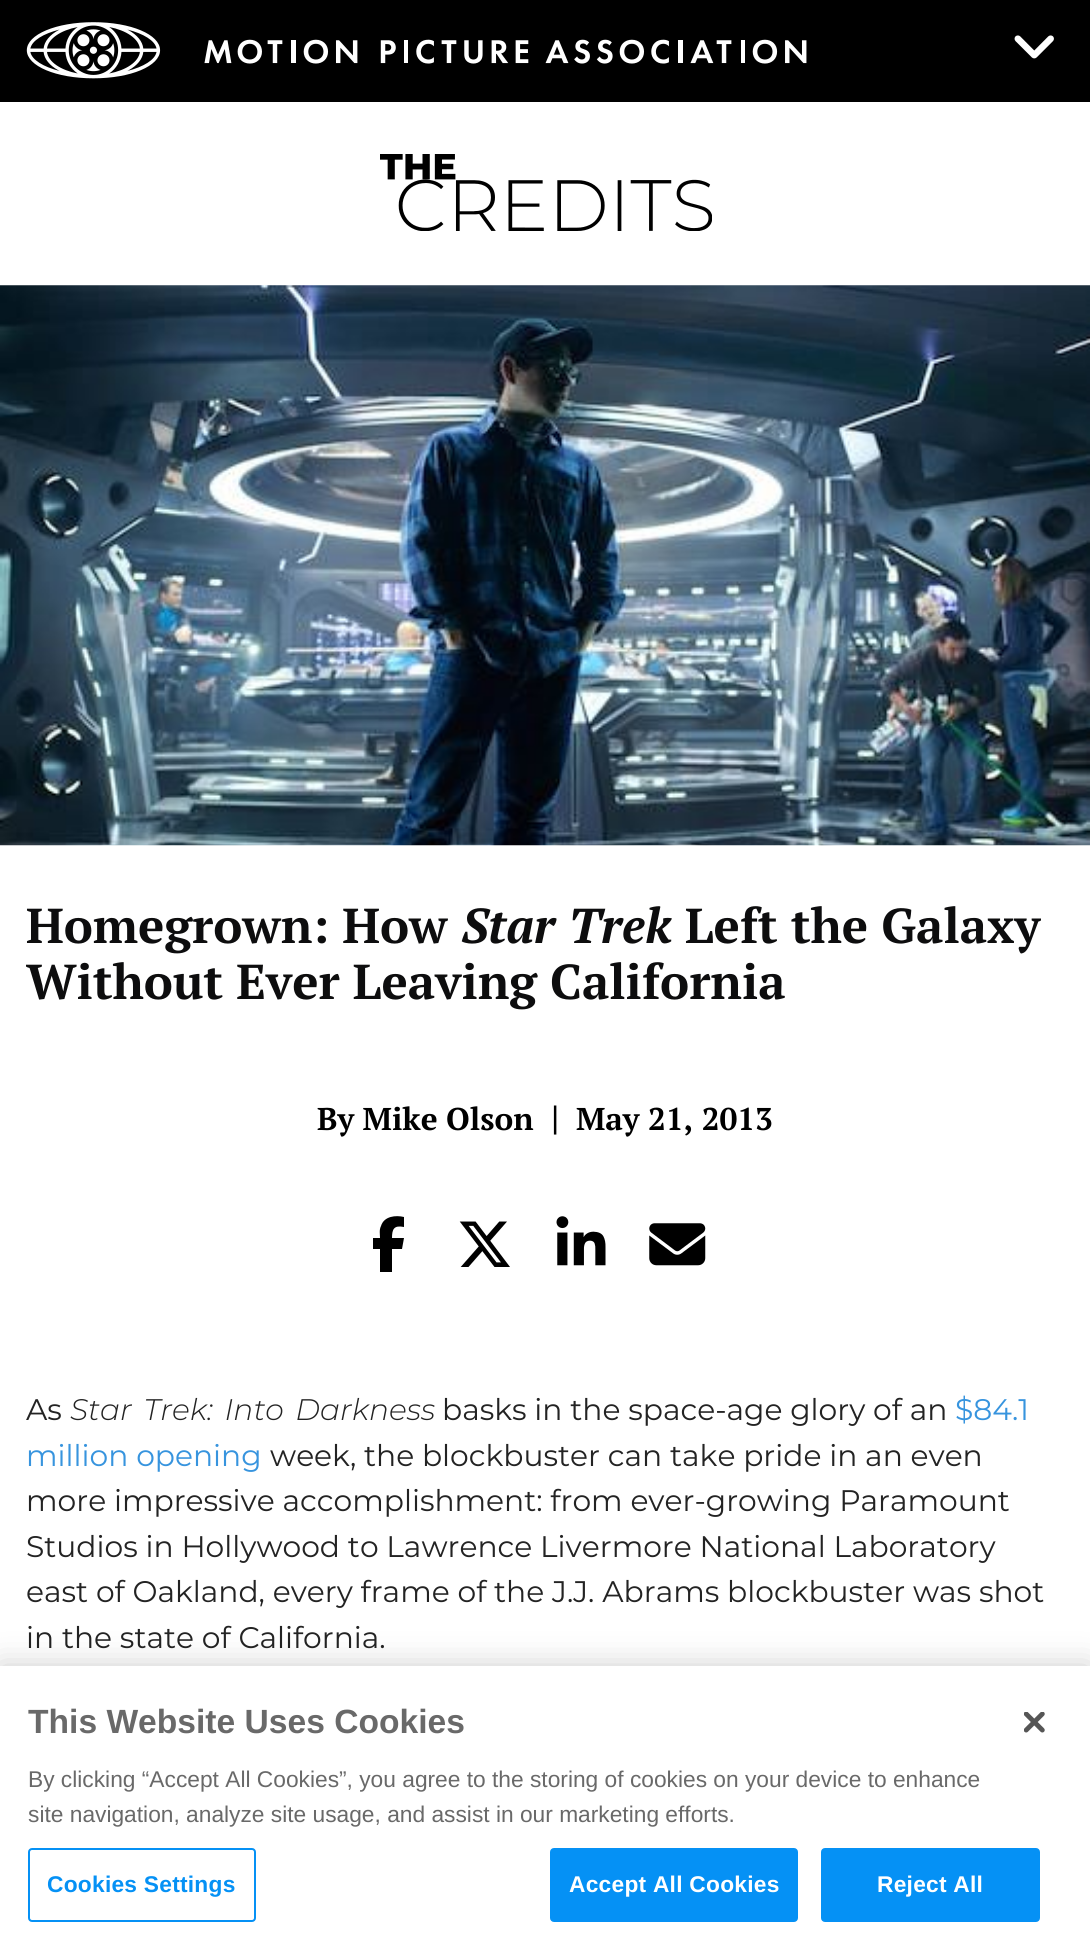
import math
import cairocffi as cairo

surface = cairo.ImageSurface(cairo.FORMAT_RGB24, 1090, 1955)
ctx = cairo.Context(surface)
options = cairo.FontOptions()
options.set_hint_metrics(cairo.HINT_METRICS_OFF)
options.set_hint_style(cairo.HINT_STYLE_NONE)
ctx.set_font_options(options)
ctx.set_miter_limit(4)


def rgb(r, g, b):
    ctx.set_source_rgb(r / 255, g / 255, b / 255)


def face(family, size, italic, bold):
    ctx.select_font_face(family, cairo.FONT_SLANT_ITALIC if italic else cairo.FONT_SLANT_NORMAL, cairo.FONT_WEIGHT_BOLD if bold else cairo.FONT_WEIGHT_NORMAL)
    ctx.set_font_size(size)


def label(x, y, s):
    ctx.move_to(x, y)
    ctx.show_text(s)


def tracked(x, y, s, letter, word):
    ctx.move_to(x, y)
    for ch in s:
        ctx.show_text(ch)
        ctx.rel_move_to(letter + word * (ch == ' '), 0)


def rect(x, y, w, h):
    ctx.rectangle(x, y, w, h)
    ctx.fill()


def rrect(x, y, w, h, r):
    ctx.new_sub_path()
    for i, (u, v) in enumerate([(x + w - r, y + h - r), (x + r, y + h - r), (x + r, y + r), (x + w - r, y + r)]):
        ctx.arc(u, v, r, i * math.pi / 2, (i + 1) * math.pi / 2)
    ctx.close_path()


def soft_shadow(x, y, w, h, r, blur, alpha):
    ctx.push_group_with_content(cairo.CONTENT_ALPHA)
    ctx.set_operator(cairo.OPERATOR_SOURCE)
    for i in range(15, -16, -2):
        e = blur * i / 6
        if min(w, h) + 2 * e > 0:
            ctx.set_source_rgba(0, 0, 0, alpha * math.erfc((i - 1) / 8.5) / 2)
            rrect(x - e, y - e, w + 2 * e, h + 2 * e, max(0, min(r + e + blur * .6, min(w, h) / 2 + e)))
            ctx.fill()
    ctx.mask(ctx.pop_group())


def image(path, x, y, w, h):
    ctx.save()
    ctx.set_source_surface(cairo.ImageSurface.create_from_png(path), x, y)
    ctx.rectangle(x, y, w, h)
    ctx.fill()
    ctx.restore()


rgb(255, 255, 255)
ctx.paint()
rgb(0, 0, 0)
rect(0, 0, 1090, 102)
image('image0.png', 26, 22, 781, 57)
image('image1.png', 1014, 35, 40, 24)
image('image2.png', 380, 154, 332, 77)
image('image3.png', 0, 285, 1090, 561)
face('PT Serif', 49, 0, 1)
rgb(13, 13, 14)
label(26, 943, 'Homegrown: How')
face('PT Serif', 49, 1, 1)
label(461, 943, 'Star Trek')
face('PT Serif', 49, 0, 1)
label(685, 943, 'Left the Galaxy')
label(26, 999, 'Without Ever Leaving California')
face('PT Serif', 31.5, 0, 1)
rgb(0, 0, 0)
label(317, 1130, 'By Mike Olson')
face('PT Serif', 35, 0, 1)
label(551, 1130, '|')
face('PT Serif', 31.5, 0, 1)
label(576, 1130, 'May 21, 2013')
ctx.new_path()
ctx.move_to(380, 1249)
ctx.line_to(380, 1272)
ctx.line_to(380, 1249)
ctx.line_to(380, 1272)
ctx.line_to(392, 1272)
ctx.line_to(392, 1249)
ctx.line_to(402, 1249)
ctx.line_to(404, 1238)
ctx.line_to(392, 1238)
ctx.curve_to(392, 1229, 394, 1225, 404, 1227)
ctx.line_to(404, 1217)
ctx.curve_to(396, 1215, 384, 1216, 381, 1226)
ctx.curve_to(379, 1230, 380, 1234, 380, 1238)
ctx.line_to(373, 1238)
ctx.line_to(373, 1249)
ctx.close_path()
ctx.fill()
image('image4.png', 459, 1221, 51, 46)
image('image5.png', 556, 1216, 50, 50)
image('image6.png', 649, 1223, 57, 43)
face('Montserrat', 29.75, 0, 0)
rgb(35, 35, 35)
label(26, 1420, 'As')
face('Montserrat Light', 29.75, 1, 0)
tracked(70, 1420, 'Star Trek: Into Darkness', 0, 4)
face('Montserrat', 29.75, 0, 0)
label(442, 1420, 'basks in the space-age glory of an')
rgb(55, 148, 222)
label(955, 1420, '$84.1')
label(26, 1466, 'million opening')
rgb(35, 35, 35)
label(270, 1466, 'week, the blockbuster can take pride in an even')
label(26, 1511, 'more impressive accomplishment: from ever-growing Paramount')
label(26, 1557, 'Studios in Hollywood to Lawrence Livermore National Laboratory')
label(26, 1602, 'east of Oakland, every frame of the J.J. Abrams blockbuster was shot')
label(26, 1648, 'in the state of California.')
rgb(0, 0, 0)
soft_shadow(0, 1666, 1090, 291, 0, 16, 0.2)
rgb(255, 255, 255)
rect(0, 1666, 1090, 289)
face('Liberation Sans', 33.6, 0, 1)
rgb(105, 105, 105)
label(28, 1733, 'This Website Uses Cookies')
face('Liberation Sans', 22.75, 0, 0)
label(28, 1787, 'By clicking “Accept All Cookies”, you agree to the storing of cookies on your device to enhance')
label(28, 1822, 'site navigation, analyze site usage, and assist in our marketing efforts.')
rrect(29, 1849, 226, 72, 3)
rgb(5, 145, 245)
ctx.stroke()
face('Liberation Sans', 22.75, 0, 1)
tracked(47, 1892, 'Cookies Settings', 0.25, 0)
rrect(551, 1849, 246, 72, 3)
ctx.fill_preserve()
ctx.stroke()
rgb(255, 255, 255)
tracked(569, 1892, 'Accept All Cookies', 0.25, 0)
rgb(5, 145, 245)
rrect(822, 1849, 217, 72, 3)
ctx.fill_preserve()
ctx.stroke()
rgb(255, 255, 255)
tracked(877, 1892, 'Reject All', 0.25, 0)
image('image7.png', 1024, 1712, 21, 21)
surface.write_to_png('render.png')
